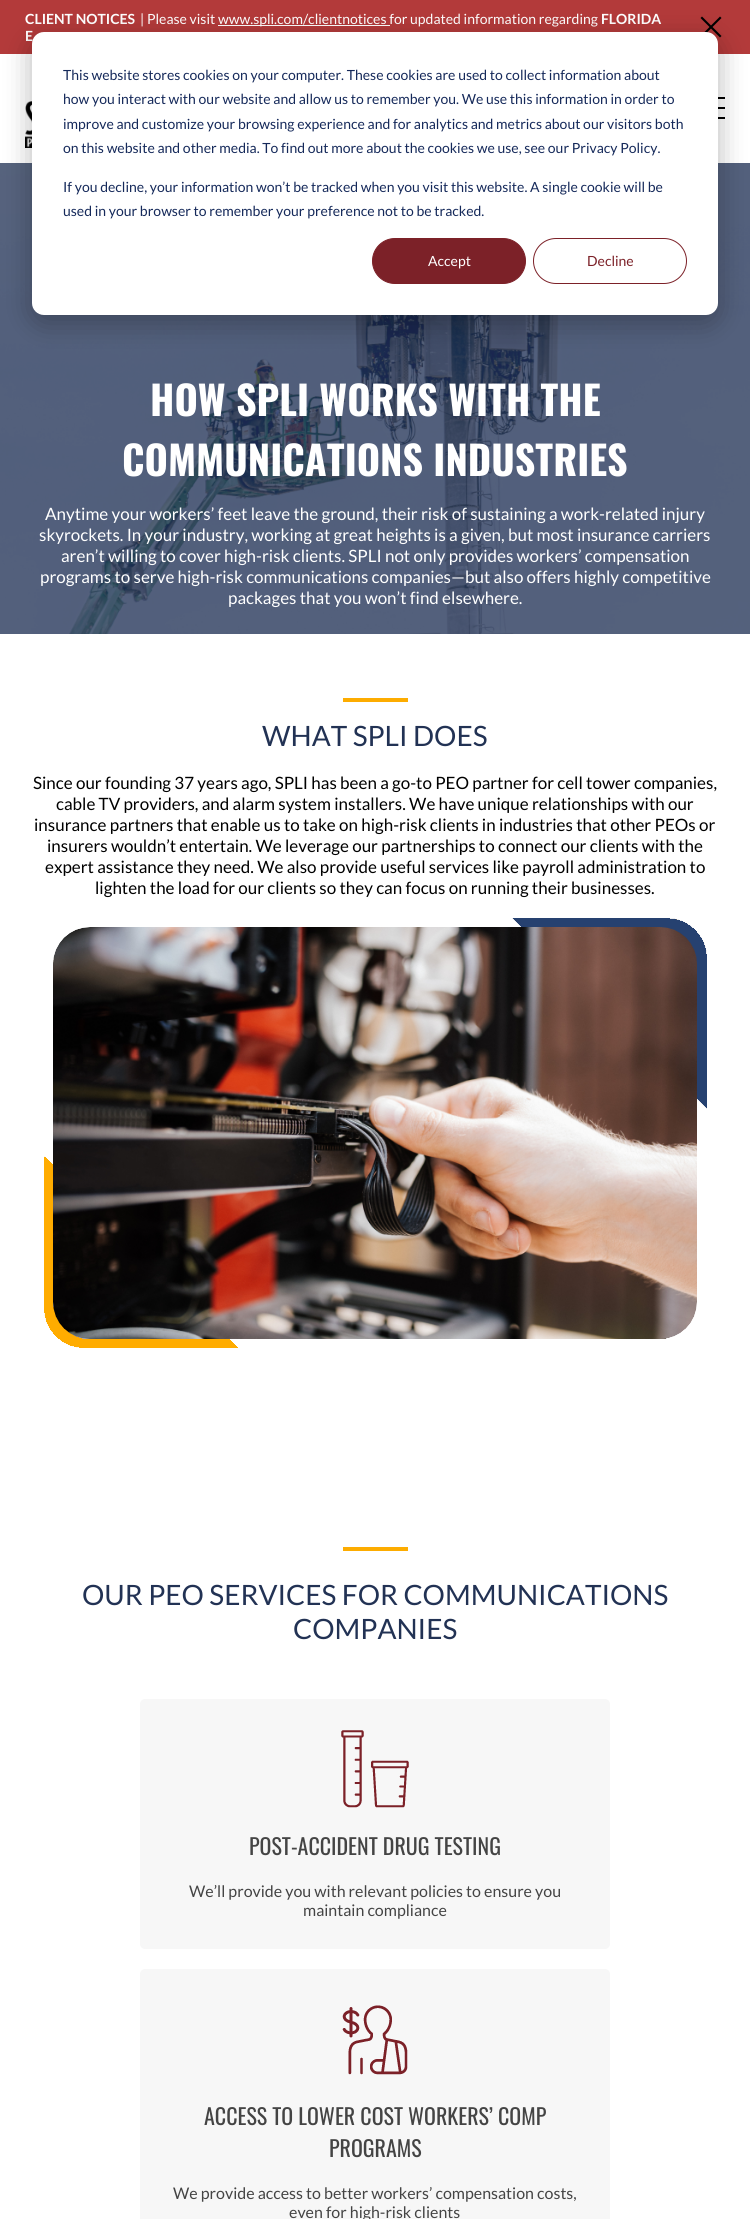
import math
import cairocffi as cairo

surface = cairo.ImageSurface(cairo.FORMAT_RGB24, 750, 2219)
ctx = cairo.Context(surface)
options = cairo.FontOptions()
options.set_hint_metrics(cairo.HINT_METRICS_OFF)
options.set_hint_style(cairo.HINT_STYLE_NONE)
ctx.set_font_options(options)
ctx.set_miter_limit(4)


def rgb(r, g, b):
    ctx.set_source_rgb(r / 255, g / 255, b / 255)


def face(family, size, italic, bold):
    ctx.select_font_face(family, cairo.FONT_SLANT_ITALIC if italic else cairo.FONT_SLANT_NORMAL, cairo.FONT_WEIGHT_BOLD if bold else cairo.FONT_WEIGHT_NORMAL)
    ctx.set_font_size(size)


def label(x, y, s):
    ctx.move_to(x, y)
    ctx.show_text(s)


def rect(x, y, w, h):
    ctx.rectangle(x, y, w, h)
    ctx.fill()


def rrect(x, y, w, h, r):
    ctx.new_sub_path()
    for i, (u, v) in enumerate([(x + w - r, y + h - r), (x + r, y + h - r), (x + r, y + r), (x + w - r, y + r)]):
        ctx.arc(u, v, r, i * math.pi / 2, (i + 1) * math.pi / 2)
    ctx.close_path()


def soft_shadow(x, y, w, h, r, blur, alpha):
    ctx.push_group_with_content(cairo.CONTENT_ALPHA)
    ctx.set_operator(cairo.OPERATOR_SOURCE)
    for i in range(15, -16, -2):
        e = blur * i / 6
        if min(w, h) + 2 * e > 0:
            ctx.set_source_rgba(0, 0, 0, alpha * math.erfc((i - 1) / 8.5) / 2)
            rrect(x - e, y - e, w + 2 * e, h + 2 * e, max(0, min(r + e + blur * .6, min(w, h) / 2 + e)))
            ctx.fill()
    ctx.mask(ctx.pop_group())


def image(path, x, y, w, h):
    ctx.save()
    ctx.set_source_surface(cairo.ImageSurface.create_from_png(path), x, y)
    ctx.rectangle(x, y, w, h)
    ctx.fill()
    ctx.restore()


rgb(255, 255, 255)
ctx.paint()
rgb(179, 58, 58)
rect(0, 0, 750, 54)
face('Lato', 14, 0, 1)
rgb(255, 255, 255)
label(25, 24, 'CLIENT NOTICES')
face('Lato', 14, 0, 0)
label(140, 24, '| Please visit')
rect(218, 25, 172, 1)
label(218, 24, 'www.spli.com/clientnotices for updated information regarding')
face('Lato', 14, 0, 1)
label(601, 24, 'FLORIDA')
label(25, 41, 'E')
rgb(0, 0, 0)
ctx.new_path()
ctx.move_to(702, 16.5)
ctx.line_to(721.5, 36)
ctx.line_to(720, 37.5)
ctx.line_to(700.5, 18)
ctx.close_path()
ctx.fill()
ctx.new_path()
ctx.move_to(700.5, 36)
ctx.line_to(720, 16.5)
ctx.line_to(721.5, 18)
ctx.line_to(702, 37.5)
ctx.close_path()
ctx.fill()
image('image0.png', 25, 101, 7, 47)
rect(718, 97, 7, 2)
rect(718, 107, 7, 2)
rect(718, 117, 7, 2)
image('image1.png', 0, 163, 750, 471)
face('Oswald', 40, 0, 1)
rgb(255, 255, 255)
label(150, 416, 'HOW SPLI WORKS WITH THE')
label(122, 476, 'COMMUNICATIONS INDUSTRIES')
face('Lato', 17, 0, 0)
label(45, 520, 'Anytime your workers’ feet leave the ground, their risk of sustaining a work-related injury')
label(39, 541, 'skyrockets. In your industry, working at great heights is a given, but most insurance carriers')
label(61, 562, 'aren’t willing to cover high-risk clients. SPLI not only provides workers’ compensation')
label(40, 583, 'programs to serve high-risk communications companies—but also offers highly competitive')
label(228, 604, 'packages that you won’t find elsewhere.')
rgb(253, 172, 0)
rect(343, 698, 65, 4)
face('Lato', 28, 0, 0)
rgb(34, 50, 84)
label(262, 746, 'WHAT SPLI DOES')
face('Lato', 17, 0, 0)
rgb(0, 0, 0)
label(33, 789, 'Since our founding 37 years ago, SPLI has been a go-to PEO partner for cell tower companies,')
label(56, 810, 'cable TV providers, and alarm system installers. We have unique relationships with our')
label(34, 831, 'insurance partners that enable us to take on high-risk clients in industries that other PEOs or')
label(47, 852, 'insurers wouldn’t entertain. We leverage our partnerships to connect our clients with the')
label(45, 873, 'expert assistance they need. We also provide useful services like payroll administration to')
label(95, 894, 'lighten the load for our clients so they can focus on running their businesses.')
image('image2.png', 44, 918, 663, 430)
rgb(253, 172, 0)
rect(343, 1547, 65, 4)
face('Lato', 28, 0, 0)
rgb(34, 50, 84)
label(82, 1605, 'OUR PEO SERVICES FOR COMMUNICATIONS')
label(293, 1639, 'COMPANIES')
rgb(247, 247, 247)
rrect(140, 1699, 470, 250, 5)
ctx.fill()
image('image3.png', 341, 1730, 68, 78)
face('Oswald', 22, 0, 0)
rgb(68, 68, 68)
label(249, 1855, 'POST-ACCIDENT DRUG TESTING')
face('Lato', 16, 0, 0)
label(189, 1897, 'We’ll provide you with relevant policies to ensure you')
label(303, 1916, 'maintain compliance')
rgb(247, 247, 247)
rrect(140, 1969, 470, 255, 5)
ctx.fill()
image('image4.png', 342, 2005, 66, 70)
face('Oswald', 22, 0, 0)
rgb(68, 68, 68)
label(204, 2125, 'ACCESS TO LOWER COST WORKERS’ COMP')
label(329, 2157, 'PROGRAMS')
face('Lato', 16, 0, 0)
label(173, 2199, 'We provide access to better workers’ compensation costs,')
label(289, 2218, 'even for high-risk clients')
rgb(0, 0, 0)
soft_shadow(32, 40, 686, 283, 12, 14, 0.28)
rgb(255, 255, 255)
rrect(32, 32, 686, 283, 12)
ctx.fill()
face('Lato', 14, 0, 0)
rgb(21, 41, 90)
label(63, 80, 'This website stores cookies on your computer. These cookies are used to collect information about')
label(63, 104, 'how you interact with our website and allow us to remember you. We use this information in order to')
label(63, 129, 'improve and customize your browsing experience and for analytics and metrics about our visitors both')
label(63, 153, 'on this website and other media. To find out more about the cookies we use, see our Privacy Policy.')
label(63, 192, 'If you decline, your information won’t be tracked when you visit this website. A single cookie will be')
label(63, 216, 'used in your browser to remember your preference not to be tracked.')
rgb(124, 33, 40)
rrect(372.5, 238.5, 153, 45, 22.5)
ctx.fill_preserve()
ctx.set_line_width(1)
ctx.stroke()
rgb(255, 255, 255)
label(428, 266, 'Accept')
rrect(533.5, 238.5, 153, 45, 22.5)
rgb(124, 33, 40)
ctx.stroke()
label(587, 266, 'Decline')
surface.write_to_png('render.png')
